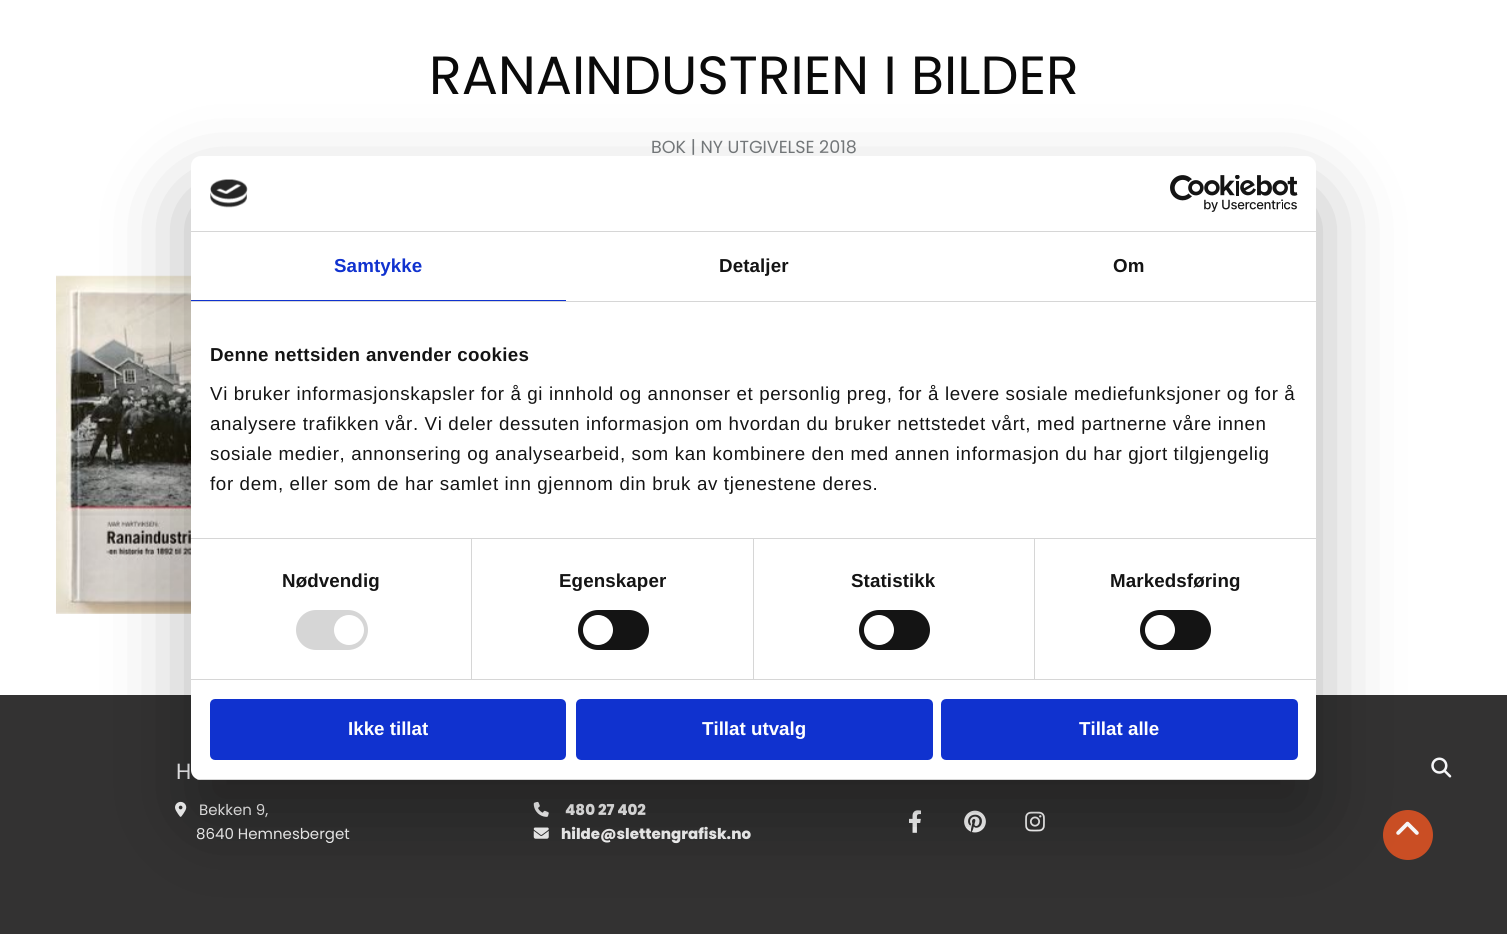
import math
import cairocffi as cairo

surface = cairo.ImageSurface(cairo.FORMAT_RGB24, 1507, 934)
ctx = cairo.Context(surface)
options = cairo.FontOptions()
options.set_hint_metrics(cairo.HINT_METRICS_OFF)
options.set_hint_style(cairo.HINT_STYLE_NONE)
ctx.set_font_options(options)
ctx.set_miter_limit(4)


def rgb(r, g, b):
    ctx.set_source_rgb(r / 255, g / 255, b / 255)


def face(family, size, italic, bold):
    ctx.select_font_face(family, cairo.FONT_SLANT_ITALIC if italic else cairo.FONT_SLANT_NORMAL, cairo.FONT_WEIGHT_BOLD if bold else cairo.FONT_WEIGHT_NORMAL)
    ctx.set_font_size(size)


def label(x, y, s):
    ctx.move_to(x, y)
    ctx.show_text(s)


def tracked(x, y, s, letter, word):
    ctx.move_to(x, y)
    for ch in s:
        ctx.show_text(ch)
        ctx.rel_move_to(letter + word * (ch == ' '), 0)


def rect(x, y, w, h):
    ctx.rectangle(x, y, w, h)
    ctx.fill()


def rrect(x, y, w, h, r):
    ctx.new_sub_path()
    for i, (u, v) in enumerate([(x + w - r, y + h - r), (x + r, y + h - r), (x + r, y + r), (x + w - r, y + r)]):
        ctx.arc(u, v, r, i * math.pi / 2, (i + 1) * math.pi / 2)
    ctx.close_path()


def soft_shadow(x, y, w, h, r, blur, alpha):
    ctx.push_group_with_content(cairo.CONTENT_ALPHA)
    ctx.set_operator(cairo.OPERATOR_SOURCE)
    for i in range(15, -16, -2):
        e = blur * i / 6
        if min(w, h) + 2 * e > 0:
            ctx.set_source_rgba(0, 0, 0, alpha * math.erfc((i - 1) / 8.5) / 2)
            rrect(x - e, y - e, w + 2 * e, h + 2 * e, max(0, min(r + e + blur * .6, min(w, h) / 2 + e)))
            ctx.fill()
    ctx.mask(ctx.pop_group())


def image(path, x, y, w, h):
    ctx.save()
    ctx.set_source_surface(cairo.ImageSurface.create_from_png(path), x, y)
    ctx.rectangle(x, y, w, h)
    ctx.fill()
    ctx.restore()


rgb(255, 255, 255)
ctx.paint()
face('Poppins', 53.75, 0, 0)
rgb(10, 10, 10)
label(429, 94, 'RANAINDUSTRIEN I BILDER')
face('Poppins', 17.5, 0, 0)
rgb(119, 123, 125)
label(651, 153, 'BOK | NY UTGIVELSE 2018')
image('image0.png', 56, 275, 135, 339)
rgb(51, 50, 50)
rect(0, 695, 1507, 239)
face('Poppins', 22, 0, 0)
rgb(246, 246, 248)
tracked(176, 779, 'H', 2, 0)
image('image1.png', 175, 801, 12, 16)
face('Poppins', 15, 0, 0)
rgb(255, 255, 255)
label(199, 815, 'Bekken 9,')
label(196, 839, '8640 Hemnesberget')
image('image2.png', 533, 801, 16, 16)
face('Poppins ExtraBold', 15, 0, 0)
label(565, 815, '480 27 402')
image('image3.png', 533, 827, 16, 12)
label(561, 839, 'hilde@slettengrafisk.no')
image('image4.png', 909, 810, 12, 23)
image('image5.png', 964, 810, 22, 23)
image('image6.png', 1025, 811, 20, 21)
image('image7.png', 1431, 757, 21, 21)
rgb(202, 78, 36)
ctx.arc(1408, 835, 25, 0, 2 * math.pi)
ctx.fill()
image('image10.png', 1396, 821, 23, 14)
rgb(0, 0, 0)
soft_shadow(191, 196, 1125, 624, 10, 42.5, 0.3)
rgb(255, 255, 255)
rrect(191, 156, 1125, 624, 10)
ctx.fill()
rgb(214, 214, 214)
rect(191, 231, 1125, 1)
image('image8.png', 210, 179, 38, 29)
image('image9.png', 1170, 175, 128, 37)
rect(191, 301, 1125, 1)
rgb(16, 50, 207)
rect(191, 300, 375, 1)
face('Liberation Sans', 18.75, 0, 1)
tracked(334, 272, 'Samtykke', 0.1, 0)
rgb(20, 20, 20)
tracked(719, 272, 'Detaljer', 0.1, 0)
tracked(1113, 272, 'Om', 0.1, 0)
rgb(214, 214, 214)
rect(191, 538, 1125, 1)
rgb(20, 20, 20)
tracked(210, 361, 'Denne nettsiden anvender cookies', 0.3, 0)
face('Liberation Sans', 18.75, 0, 0)
tracked(210, 400, 'Vi bruker informasjonskapsler for å gi innhold og annonser et personlig preg, for å levere sosiale mediefunksjoner og for å', 0.62, 0)
tracked(210, 430, 'analysere trafikken vår. Vi deler dessuten informasjon om hvordan du bruker nettstedet vårt, med partnerne våre innen', 0.62, 0)
tracked(210, 460, 'sosiale medier, annonsering og analysearbeid, som kan kombinere den med annen informasjon du har gjort tilgjengelig', 0.62, 0)
tracked(210, 490, 'for dem, eller som de har samlet inn gjennom din bruk av tjenestene deres.', 0.62, 0)
rgb(214, 214, 214)
rect(191, 679, 1125, 1)
rect(471, 539, 1, 140)
face('Liberation Sans', 18.75, 0, 1)
rgb(20, 20, 20)
tracked(282, 587, 'Nødvendig', 0.1, 0)
rgb(214, 214, 214)
rrect(296, 610, 72, 40, 20)
ctx.fill()
rgb(255, 255, 255)
ctx.arc(349, 630, 15, 0, 2 * math.pi)
ctx.fill()
rgb(214, 214, 214)
rect(753, 539, 1, 140)
rgb(20, 20, 20)
tracked(559, 587, 'Egenskaper', 0.1, 0)
rrect(578, 610, 71, 40, 20)
ctx.fill()
rgb(255, 255, 255)
ctx.arc(598, 630, 15, 0, 2 * math.pi)
ctx.fill()
rgb(214, 214, 214)
rect(1034, 539, 1, 140)
rgb(20, 20, 20)
tracked(851, 587, 'Statistikk', 0.1, 0)
rrect(859, 610, 71, 40, 20)
ctx.fill()
rgb(255, 255, 255)
ctx.arc(879, 630, 15, 0, 2 * math.pi)
ctx.fill()
rgb(20, 20, 20)
tracked(1110, 587, 'Markedsføring', 0.1, 0)
rrect(1140, 610, 71, 40, 20)
ctx.fill()
rgb(255, 255, 255)
ctx.arc(1160, 630, 15, 0, 2 * math.pi)
ctx.fill()
ctx.save()
rrect(191, 156, 1125, 624, 10)
ctx.clip()
rgb(214, 214, 214)
rect(191, 779, 1125, 1)
ctx.restore()
rgb(16, 50, 207)
rrect(211.5, 700.5, 353, 58, 3.5)
ctx.fill_preserve()
ctx.set_line_width(3)
ctx.stroke()
rgb(255, 255, 255)
label(348, 735, 'Ikke tillat')
rgb(16, 50, 207)
rrect(577.5, 700.5, 354, 58, 3.5)
ctx.fill_preserve()
ctx.stroke()
rgb(255, 255, 255)
label(702, 735, 'Tillat utvalg')
rgb(16, 50, 207)
rrect(942.5, 700.5, 354, 58, 3.5)
ctx.fill_preserve()
ctx.stroke()
rgb(255, 255, 255)
label(1079, 735, 'Tillat alle')
surface.write_to_png('render.png')
